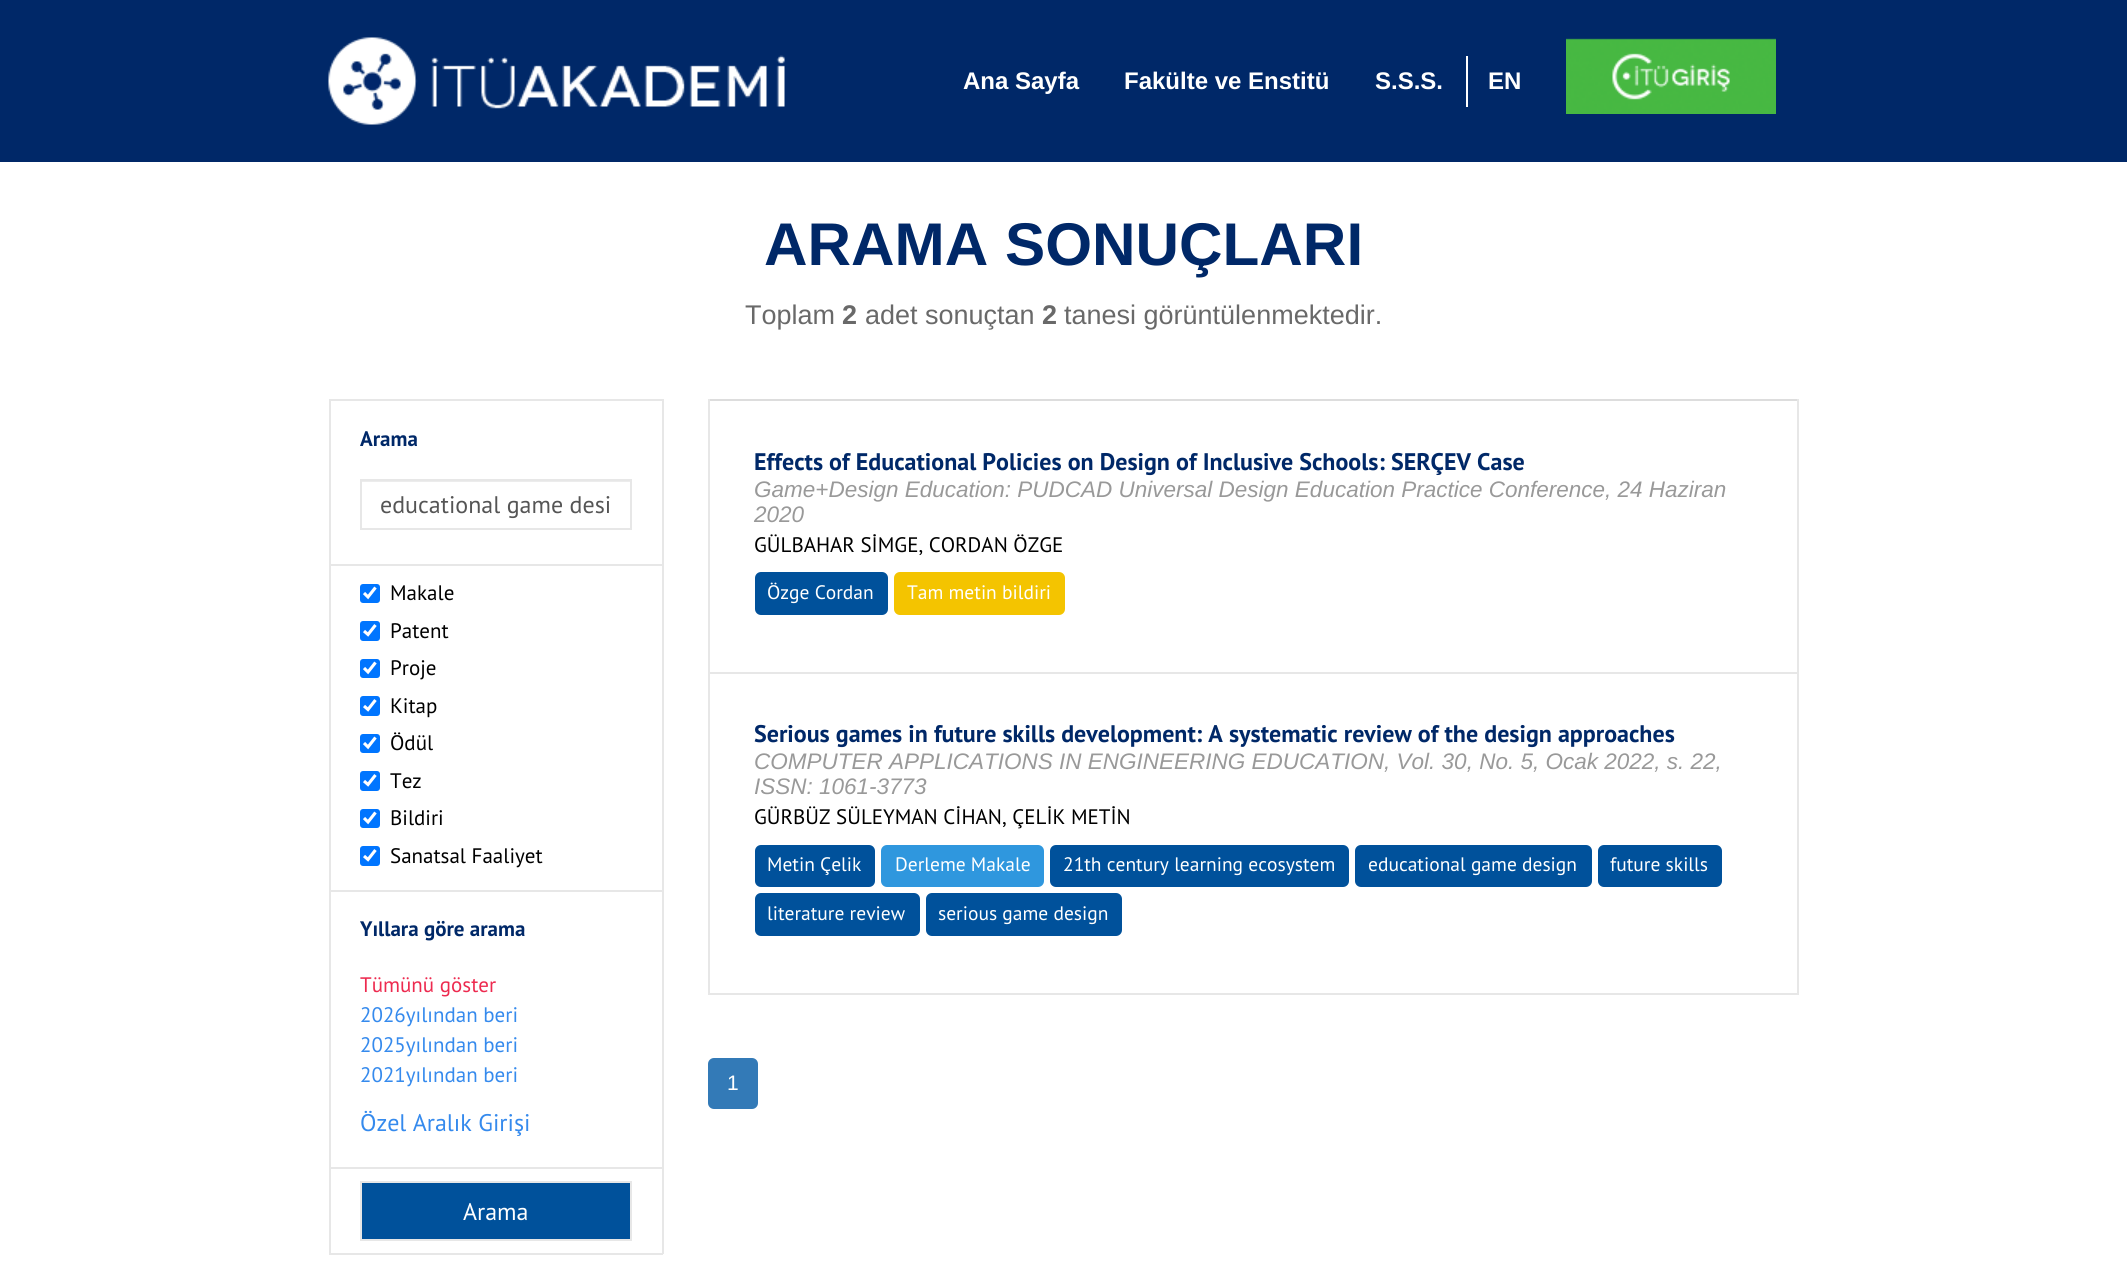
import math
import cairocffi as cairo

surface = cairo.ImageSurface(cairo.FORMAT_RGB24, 2127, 1280)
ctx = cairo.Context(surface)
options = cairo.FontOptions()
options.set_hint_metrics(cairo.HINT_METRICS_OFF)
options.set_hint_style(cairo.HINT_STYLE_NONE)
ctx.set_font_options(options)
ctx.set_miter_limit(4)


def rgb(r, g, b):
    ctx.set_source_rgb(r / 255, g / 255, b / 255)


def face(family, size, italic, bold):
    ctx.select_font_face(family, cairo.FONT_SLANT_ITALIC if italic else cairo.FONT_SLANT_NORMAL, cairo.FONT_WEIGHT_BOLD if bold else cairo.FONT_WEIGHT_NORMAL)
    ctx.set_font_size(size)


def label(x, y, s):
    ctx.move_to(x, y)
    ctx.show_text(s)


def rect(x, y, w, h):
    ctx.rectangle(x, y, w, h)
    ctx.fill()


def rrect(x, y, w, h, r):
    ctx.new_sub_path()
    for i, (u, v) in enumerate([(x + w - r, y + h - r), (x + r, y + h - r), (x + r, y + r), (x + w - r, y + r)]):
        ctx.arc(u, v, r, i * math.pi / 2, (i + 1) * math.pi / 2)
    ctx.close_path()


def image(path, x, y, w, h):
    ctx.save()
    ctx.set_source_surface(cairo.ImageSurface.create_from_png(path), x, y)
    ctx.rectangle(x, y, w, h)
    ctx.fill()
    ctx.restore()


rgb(255, 255, 255)
ctx.paint()
rgb(0, 40, 104)
rect(0, 0, 2127, 162)
image('image0.png', 328, 37, 457, 88)
face('Liberation Sans', 24, 0, 1)
rgb(255, 255, 255)
label(963, 89, 'Ana Sayfa')
label(1124, 89, 'Fakülte ve Enstitü')
label(1375, 89, 'S.S.S.')
rect(1466, 56, 2, 51)
label(1488, 89, 'EN')
image('image1.png', 1566, 38, 210, 76)
face('Liberation Sans', 60.25, 0, 1)
rgb(0, 40, 104)
label(764, 265, 'ARAMA SONUÇLARI')
face('Liberation Sans', 27, 0, 0)
rgb(105, 105, 105)
label(745, 324, 'Toplam')
face('Liberation Sans', 27, 0, 1)
label(842, 324, '2')
face('Liberation Sans', 27, 0, 0)
label(865, 324, 'adet sonuçtan')
face('Liberation Sans', 27, 0, 1)
label(1042, 324, '2')
face('Liberation Sans', 27, 0, 0)
label(1064, 324, 'tanesi görüntülenmektedir.')
rgb(231, 231, 231)
rect(329, 399, 334, 2)
rect(329, 564, 334, 2)
rect(329, 890, 334, 2)
rect(329, 1167, 334, 2)
rect(662, 1167, 2, 87)
rect(662, 890, 2, 279)
rect(662, 564, 2, 327)
rect(662, 399, 2, 167)
rect(329, 1253, 334, 2)
rect(329, 1167, 2, 87)
rect(329, 890, 2, 279)
rect(329, 564, 2, 327)
rect(329, 399, 2, 167)
face('PT Sans', 21, 0, 1)
rgb(0, 40, 104)
label(360, 446, 'Arama')
rgb(236, 236, 236)
rect(362, 481, 268, 1)
ctx.rectangle(361, 480, 270, 49)
rgb(231, 231, 231)
ctx.stroke()
face('PT Sans', 24, 0, 0)
rgb(85, 85, 85)
label(380, 513, 'educational game desi')
rgb(0, 117, 255)
rrect(360, 584, 20, 19, 3)
ctx.fill()
ctx.new_path()
ctx.move_to(364, 593)
ctx.line_to(368, 597)
ctx.line_to(375.5, 587.5)
rgb(255, 255, 255)
ctx.set_line_width(3.1)
ctx.stroke()
face('PT Sans', 21, 0, 0)
rgb(0, 0, 0)
label(390, 600, 'Makale')
rgb(0, 117, 255)
rrect(360, 621, 20, 20, 3)
ctx.fill()
ctx.new_path()
ctx.move_to(364, 631)
ctx.line_to(368, 634.5)
ctx.line_to(375.5, 625)
rgb(255, 255, 255)
ctx.stroke()
rgb(0, 0, 0)
label(390, 638, 'Patent')
rgb(0, 117, 255)
rrect(360, 659, 20, 19, 3)
ctx.fill()
ctx.new_path()
ctx.move_to(364, 668)
ctx.line_to(368, 672)
ctx.line_to(375.5, 662.5)
rgb(255, 255, 255)
ctx.stroke()
rgb(0, 0, 0)
label(390, 675, 'Proje')
rgb(0, 117, 255)
rrect(360, 696, 20, 20, 3)
ctx.fill()
ctx.new_path()
ctx.move_to(364, 706)
ctx.line_to(368, 709.5)
ctx.line_to(375.5, 700)
rgb(255, 255, 255)
ctx.stroke()
rgb(0, 0, 0)
label(390, 713, 'Kitap')
rgb(0, 117, 255)
rrect(360, 734, 20, 19, 3)
ctx.fill()
ctx.new_path()
ctx.move_to(364, 743)
ctx.line_to(368, 747)
ctx.line_to(375.5, 737.5)
rgb(255, 255, 255)
ctx.stroke()
rgb(0, 0, 0)
label(390, 750, 'Ödül')
rgb(0, 117, 255)
rrect(360, 771, 20, 20, 3)
ctx.fill()
ctx.new_path()
ctx.move_to(364, 781)
ctx.line_to(368, 784.5)
ctx.line_to(375.5, 775)
rgb(255, 255, 255)
ctx.stroke()
rgb(0, 0, 0)
label(390, 788, 'Tez')
rgb(0, 117, 255)
rrect(360, 809, 20, 19, 3)
ctx.fill()
ctx.new_path()
ctx.move_to(364, 818)
ctx.line_to(368, 822)
ctx.line_to(375.5, 812.5)
rgb(255, 255, 255)
ctx.stroke()
rgb(0, 0, 0)
label(390, 825, 'Bildiri')
rgb(0, 117, 255)
rrect(360, 846, 20, 20, 3)
ctx.fill()
ctx.new_path()
ctx.move_to(364, 856)
ctx.line_to(368, 859.5)
ctx.line_to(375.5, 850)
rgb(255, 255, 255)
ctx.stroke()
rgb(0, 0, 0)
label(390, 863, 'Sanatsal Faaliyet')
face('PT Sans', 21, 0, 1)
rgb(0, 40, 104)
label(360, 936, 'Yıllara göre arama')
face('PT Sans', 21, 0, 0)
rgb(237, 42, 79)
label(360, 992, 'Tümünü göster')
rgb(53, 138, 237)
label(360, 1022, '2026yılından beri')
label(360, 1052, '2025yılından beri')
label(360, 1082, '2021yılından beri')
face('PT Sans', 24, 0, 0)
label(360, 1131, 'Özel Aralık Girişi')
rgb(0, 81, 155)
ctx.rectangle(361, 1182, 270, 58)
ctx.fill_preserve()
rgb(231, 231, 231)
ctx.set_line_width(2)
ctx.stroke()
rgb(255, 255, 255)
label(463, 1220, 'Arama')
rgb(221, 221, 221)
rect(708, 399, 1091, 2)
rgb(231, 231, 231)
rect(1797, 672, 2, 323)
rect(1797, 399, 2, 275)
rect(708, 993, 1091, 2)
rect(708, 672, 2, 323)
rect(708, 672, 1091, 2)
rect(708, 399, 2, 275)
face('PT Sans', 24, 0, 1)
rgb(0, 40, 104)
label(754, 470, 'Effects of Educational Policies on Design of Inclusive Schools: SERÇEV Case')
face('Liberation Sans', 22.5, 1, 0)
rgb(153, 153, 153)
label(754, 497, 'Game+Design Education: PUDCAD Universal Design Education Practice Conference, 24 Haziran')
label(754, 522, '2020')
face('PT Sans', 21, 0, 0)
rgb(0, 0, 0)
label(754, 552, 'GÜLBAHAR SİMGE, CORDAN ÖZGE')
rgb(0, 81, 155)
rrect(755, 572, 133, 43, 6)
ctx.fill()
face('PT Sans', 19.5, 0, 0)
rgb(255, 255, 255)
label(767, 599, 'Özge Cordan')
rgb(244, 196, 0)
rrect(894, 572, 171, 43, 6)
ctx.fill()
rgb(255, 255, 255)
label(907, 599, 'Tam metin bildiri')
face('PT Sans', 24, 0, 1)
rgb(0, 40, 104)
label(754, 742, 'Serious games in future skills development: A systematic review of the design approaches')
face('Liberation Sans', 22.5, 1, 0)
rgb(153, 153, 153)
label(754, 769, 'COMPUTER APPLICATIONS IN ENGINEERING EDUCATION, Vol. 30, No. 5, Ocak 2022, s. 22,')
label(754, 794, 'ISSN: 1061-3773')
face('PT Sans', 21, 0, 0)
rgb(0, 0, 0)
label(754, 824, 'GÜRBÜZ SÜLEYMAN CİHAN, ÇELİK METİN')
rgb(0, 81, 155)
rrect(755, 845, 120, 42, 6)
ctx.fill()
face('PT Sans', 19.5, 0, 0)
rgb(255, 255, 255)
label(767, 871, 'Metin Çelik')
rgb(47, 151, 222)
rrect(881, 845, 163, 42, 6)
ctx.fill()
rgb(255, 255, 255)
label(895, 871, 'Derleme Makale')
rgb(0, 81, 155)
rrect(1050, 845, 299, 42, 6)
ctx.fill()
rgb(255, 255, 255)
label(1063, 871, '21th century learning ecosystem')
rgb(0, 81, 155)
rrect(1355, 845, 237, 42, 6)
ctx.fill()
rgb(255, 255, 255)
label(1368, 871, 'educational game design')
rgb(0, 81, 155)
rrect(1598, 845, 124, 42, 6)
ctx.fill()
rgb(255, 255, 255)
label(1610, 871, 'future skills')
rgb(0, 81, 155)
rrect(755, 893, 165, 43, 6)
ctx.fill()
rgb(255, 255, 255)
label(767, 920, 'literature review')
rgb(0, 81, 155)
rrect(926, 893, 196, 43, 6)
ctx.fill()
rgb(255, 255, 255)
label(938, 920, 'serious game design')
rgb(51, 122, 183)
rrect(709, 1059, 48, 49, 5)
ctx.fill_preserve()
ctx.stroke()
face('Liberation Sans', 21, 0, 0)
rgb(255, 255, 255)
label(727, 1090, '1')
surface.write_to_png('render.png')
